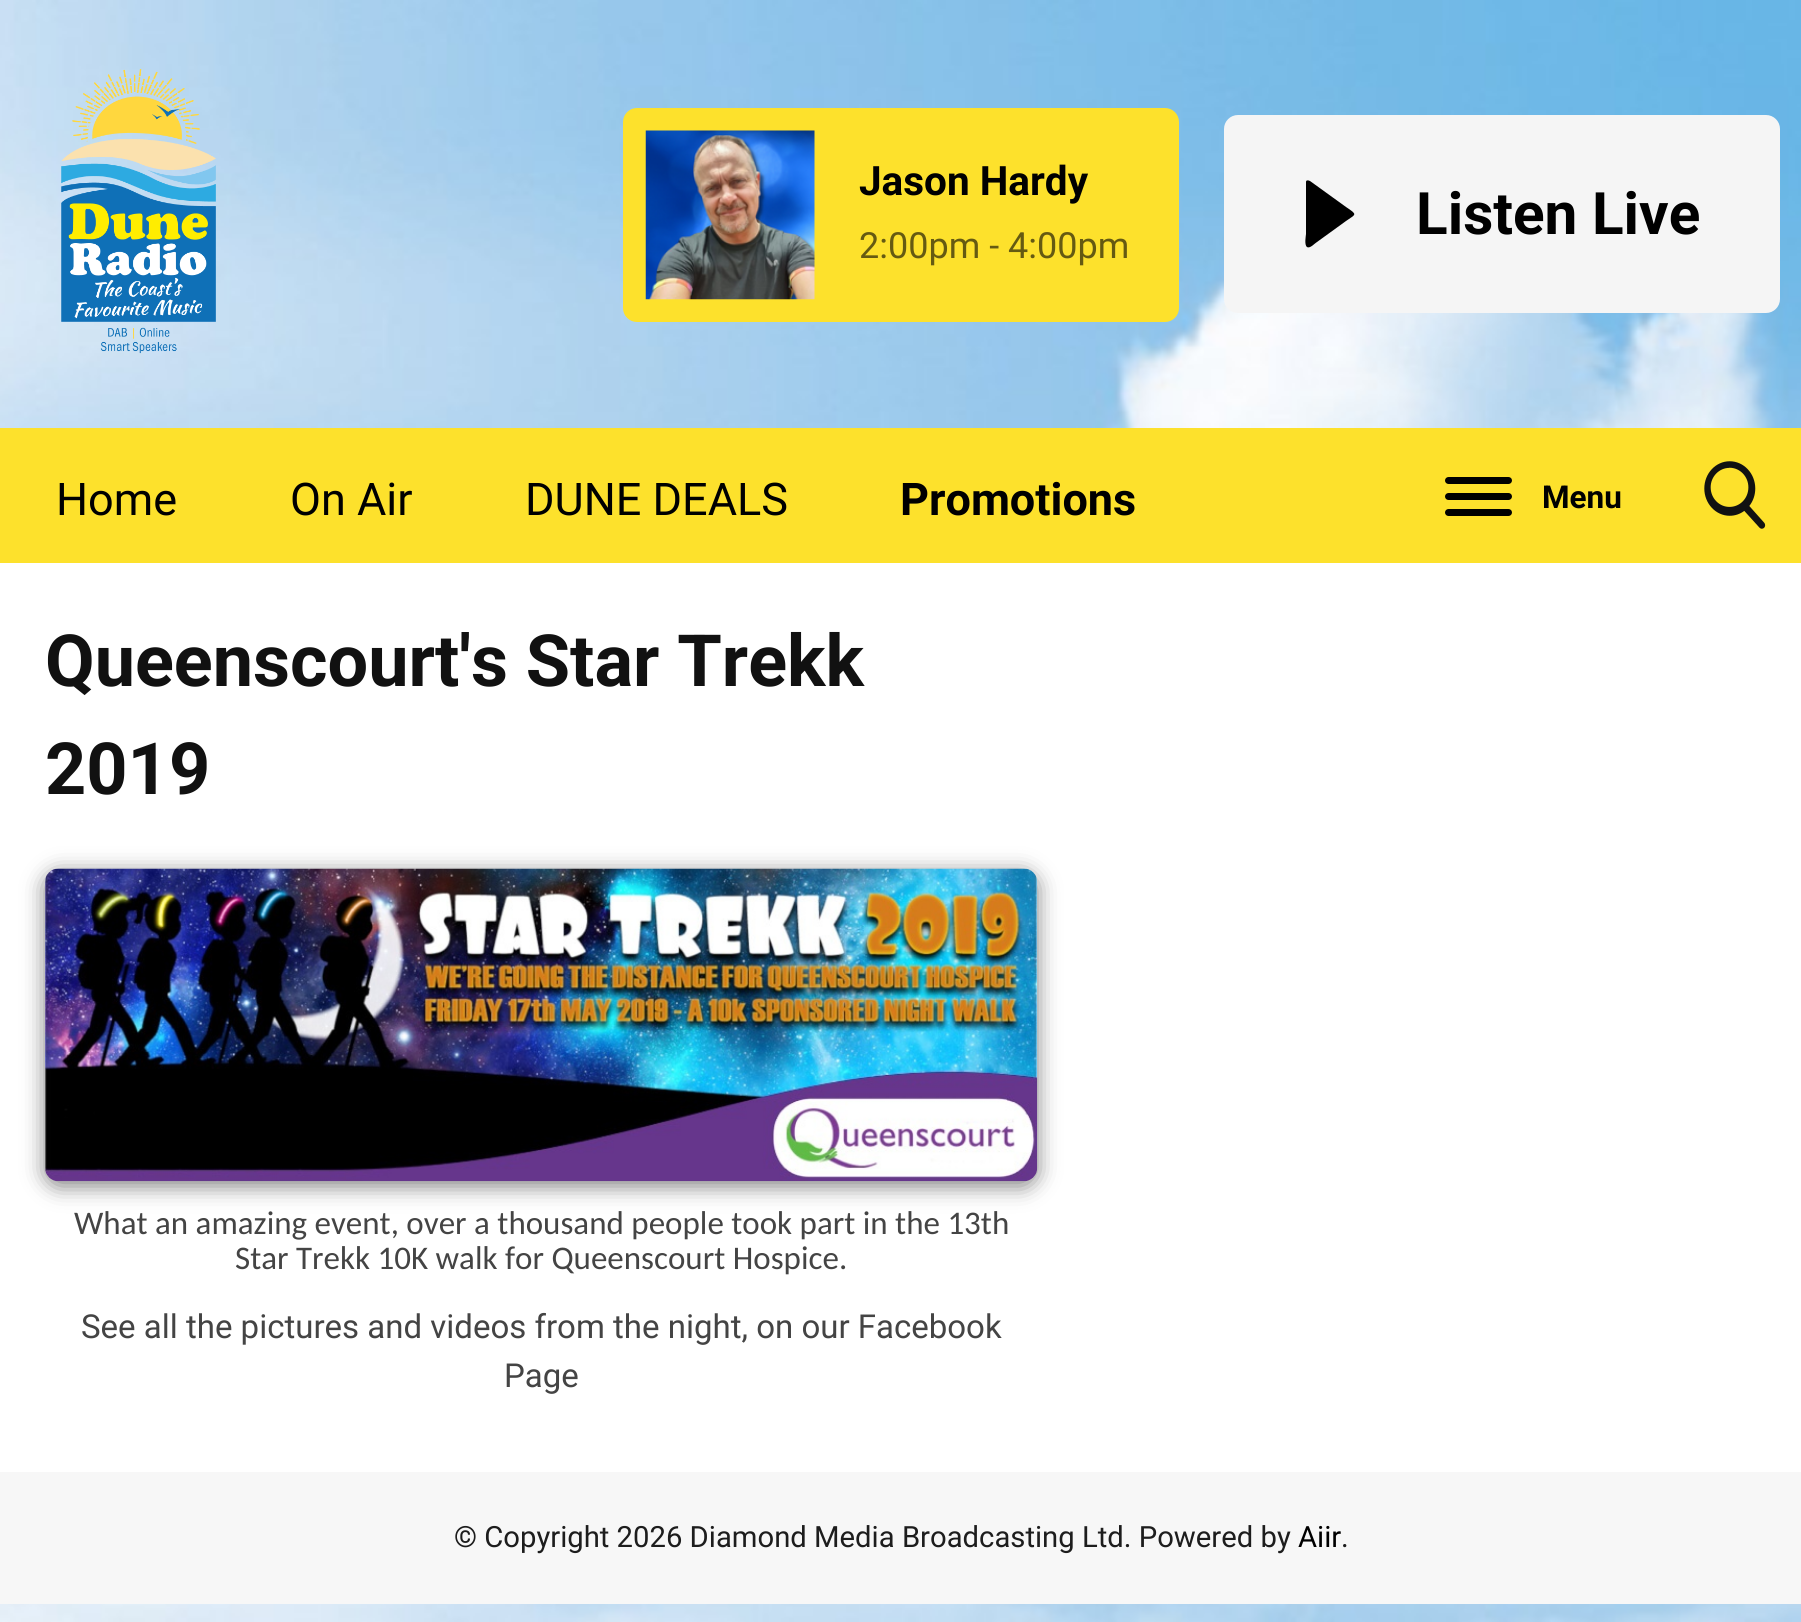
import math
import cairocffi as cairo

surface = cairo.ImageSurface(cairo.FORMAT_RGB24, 1801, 1622)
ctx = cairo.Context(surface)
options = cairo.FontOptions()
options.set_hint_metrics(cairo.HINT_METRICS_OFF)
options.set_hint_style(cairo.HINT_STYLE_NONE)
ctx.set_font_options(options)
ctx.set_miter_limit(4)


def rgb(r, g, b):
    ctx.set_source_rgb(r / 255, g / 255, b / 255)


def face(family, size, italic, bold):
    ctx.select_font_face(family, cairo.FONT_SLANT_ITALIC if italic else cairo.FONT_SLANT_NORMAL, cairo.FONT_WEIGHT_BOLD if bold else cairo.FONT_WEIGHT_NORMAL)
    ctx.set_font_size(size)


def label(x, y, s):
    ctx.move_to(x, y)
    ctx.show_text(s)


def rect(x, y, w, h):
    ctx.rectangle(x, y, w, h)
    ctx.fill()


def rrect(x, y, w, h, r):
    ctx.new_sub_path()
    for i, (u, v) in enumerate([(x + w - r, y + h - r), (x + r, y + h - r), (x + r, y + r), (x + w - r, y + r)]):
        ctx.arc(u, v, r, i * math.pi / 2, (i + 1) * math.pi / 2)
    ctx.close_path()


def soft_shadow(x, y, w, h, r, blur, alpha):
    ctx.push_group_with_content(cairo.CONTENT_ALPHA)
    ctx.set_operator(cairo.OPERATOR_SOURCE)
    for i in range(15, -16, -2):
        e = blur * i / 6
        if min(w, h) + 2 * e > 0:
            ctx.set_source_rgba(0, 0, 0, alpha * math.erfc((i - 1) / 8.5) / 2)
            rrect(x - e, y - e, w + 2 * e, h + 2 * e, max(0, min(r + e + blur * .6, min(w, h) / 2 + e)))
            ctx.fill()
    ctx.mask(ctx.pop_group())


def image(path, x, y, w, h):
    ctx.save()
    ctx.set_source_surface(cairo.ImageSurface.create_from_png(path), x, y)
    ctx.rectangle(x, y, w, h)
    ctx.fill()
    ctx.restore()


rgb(255, 255, 255)
ctx.paint()
image('image0.png', 0, 0, 1801, 1622)
image('image1.png', 61, 69, 155, 285)
rgb(253, 225, 44)
rrect(623, 108, 556, 214, 14)
ctx.fill()
image('image2.png', 645, 130, 170, 170)
face('Roboto', 40.5, 0, 1)
rgb(0, 0, 0)
label(859, 195, 'Jason Hardy')
face('Roboto', 36, 0, 0)
rgb(101, 90, 18)
label(859, 258, '2:00pm - 4:00pm')
rgb(245, 245, 245)
rrect(1224, 115, 556, 198, 14)
ctx.fill()
rgb(0, 0, 0)
ctx.set_fill_rule(cairo.FILL_RULE_EVEN_ODD)
ctx.new_path()
ctx.move_to(1310, 181)
ctx.line_to(1346, 207)
ctx.curve_to(1358, 215, 1356, 214, 1346, 221)
ctx.line_to(1317, 242)
ctx.curve_to(1315, 243, 1310, 249, 1307, 247)
ctx.curve_to(1304, 245, 1306, 235, 1306, 234)
ctx.line_to(1306, 182)
ctx.curve_to(1306, 180, 1308, 180, 1310, 181)
ctx.close_path()
ctx.fill()
face('Roboto', 58.5, 0, 1)
label(1416, 234, 'Listen Live')
rgb(253, 225, 44)
rect(0, 428, 1801, 135)
face('Roboto', 45, 0, 0)
rgb(0, 0, 0)
label(56, 515, 'Home')
label(290, 515, 'On Air')
label(525, 515, 'DUNE DEALS')
face('Roboto', 45, 0, 1)
label(900, 515, 'Promotions')
rrect(1445, 477, 67, 7, 3.5)
ctx.fill()
rrect(1445, 493, 67, 7, 3.5)
ctx.fill()
rrect(1445, 509, 67, 7, 3.5)
ctx.fill()
face('Roboto', 31.5, 0, 1)
label(1542, 508, 'Menu')
image('image3.png', 1704, 461, 62, 68)
rgb(255, 255, 255)
rect(0, 563, 1801, 909)
face('Roboto', 72, 0, 1)
rgb(17, 17, 17)
label(45, 686, 'Queenscourt\'s Star Trekk')
label(45, 794, '2019')
rgb(0, 0, 0)
soft_shadow(45, 873, 992, 313, 14, 11, 0.5)
image('image4.png', 45, 868, 993, 314)
face('Carlito', 33, 0, 0)
rgb(68, 68, 68)
label(74, 1234, 'What an amazing event, over a thousand people took part in the 13th')
label(235, 1269, 'Star Trekk 10K walk for Queenscourt Hospice.')
face('Roboto', 33, 0, 0)
label(81, 1338, 'See all the pictures and videos from the night, on our Facebook')
label(504, 1387, 'Page')
rgb(247, 247, 247)
rect(0, 1472, 1801, 132)
face('Roboto', 29.25, 0, 0)
rgb(29, 29, 29)
label(454, 1547, '© Copyright 2026 Diamond Media Broadcasting Ltd. Powered by')
rgb(0, 0, 0)
label(1298, 1547, 'Aiir')
rgb(29, 29, 29)
label(1341, 1547, '.')
surface.write_to_png('render.png')
